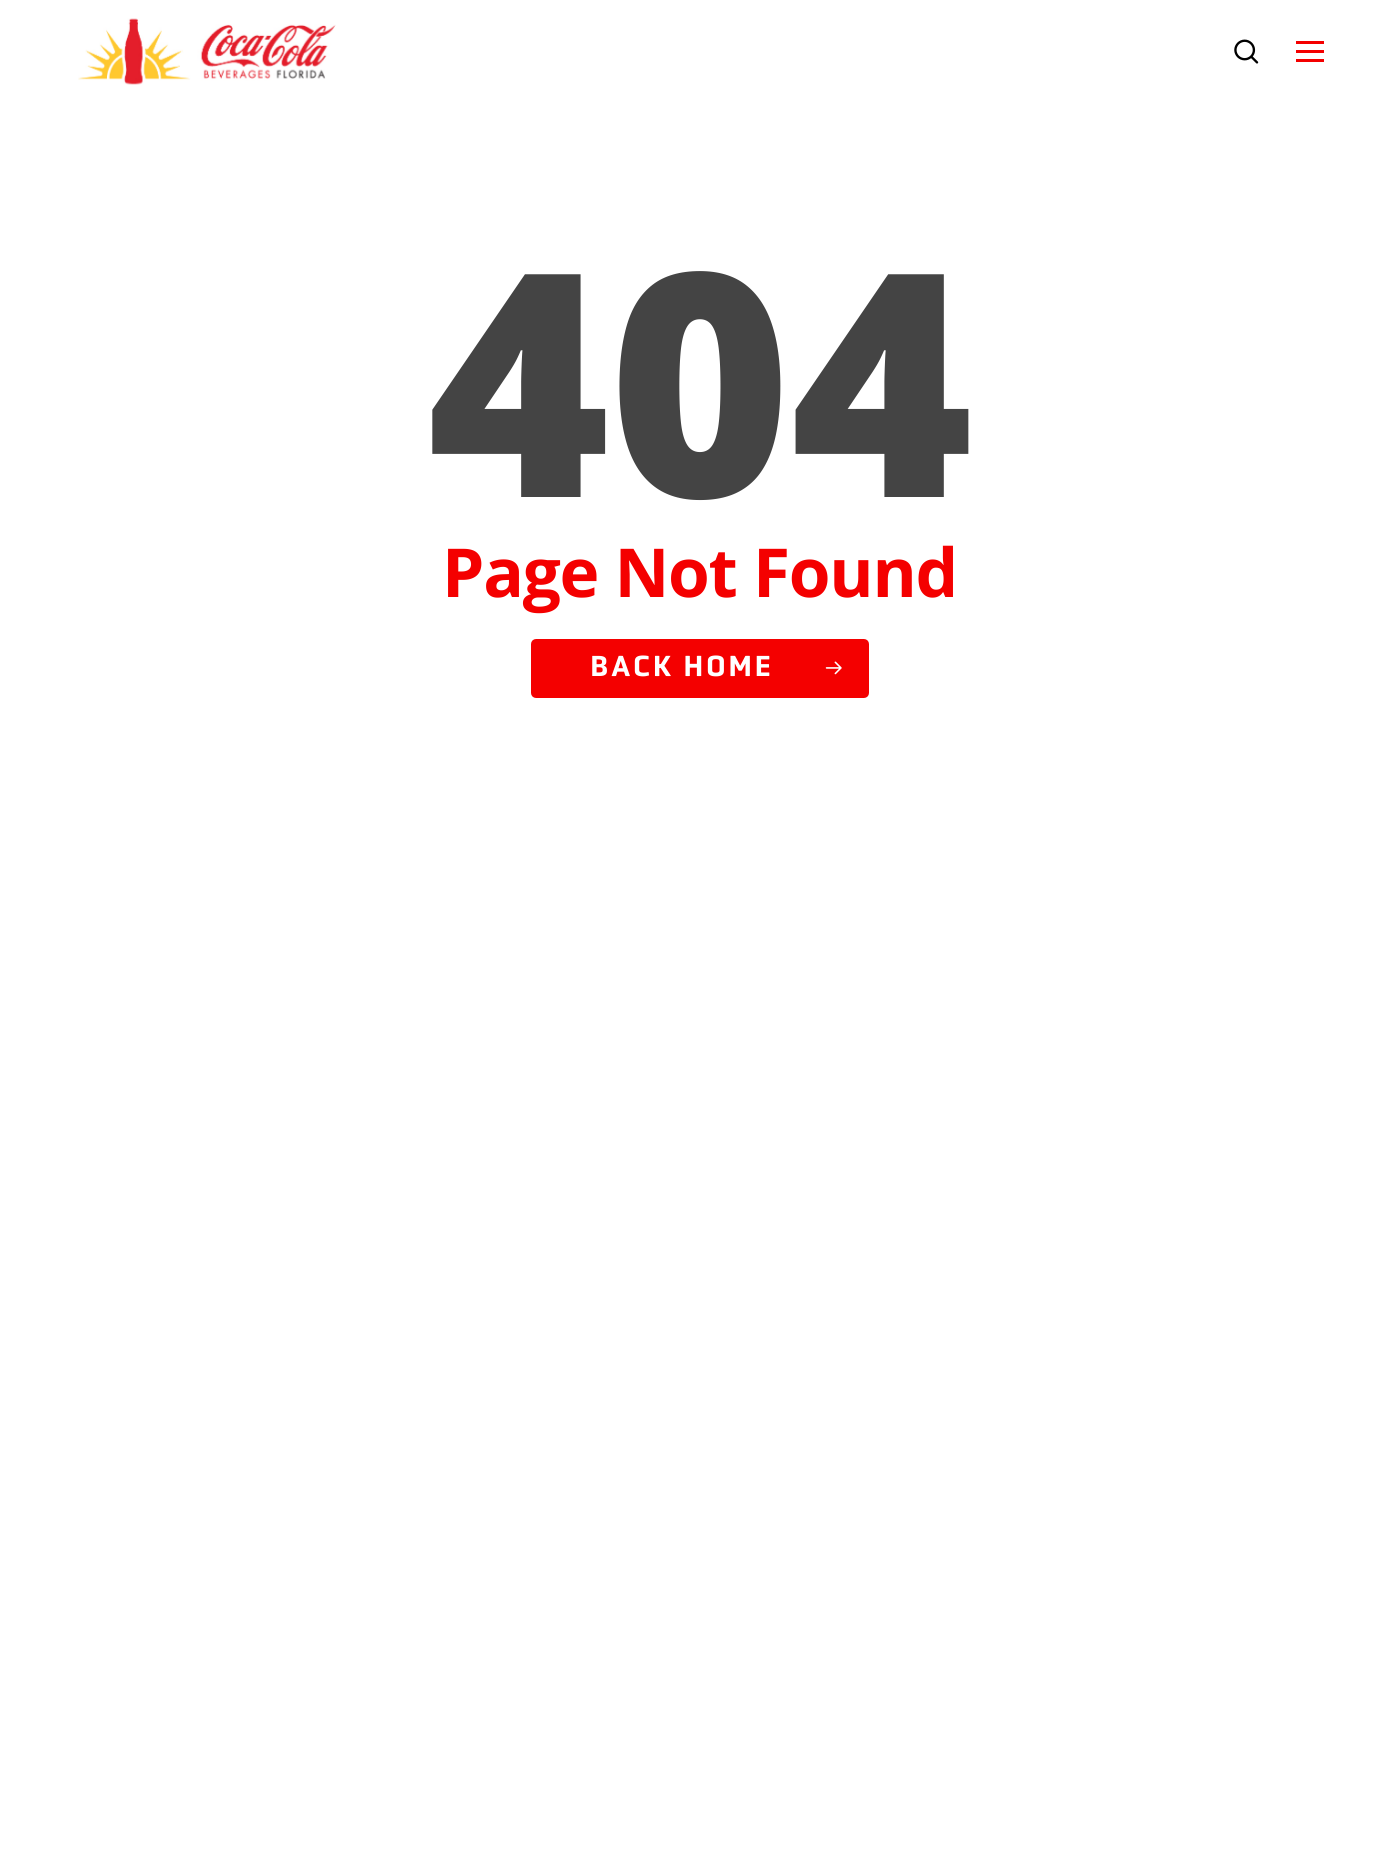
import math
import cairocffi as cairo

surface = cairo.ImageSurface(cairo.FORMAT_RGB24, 1398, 1874)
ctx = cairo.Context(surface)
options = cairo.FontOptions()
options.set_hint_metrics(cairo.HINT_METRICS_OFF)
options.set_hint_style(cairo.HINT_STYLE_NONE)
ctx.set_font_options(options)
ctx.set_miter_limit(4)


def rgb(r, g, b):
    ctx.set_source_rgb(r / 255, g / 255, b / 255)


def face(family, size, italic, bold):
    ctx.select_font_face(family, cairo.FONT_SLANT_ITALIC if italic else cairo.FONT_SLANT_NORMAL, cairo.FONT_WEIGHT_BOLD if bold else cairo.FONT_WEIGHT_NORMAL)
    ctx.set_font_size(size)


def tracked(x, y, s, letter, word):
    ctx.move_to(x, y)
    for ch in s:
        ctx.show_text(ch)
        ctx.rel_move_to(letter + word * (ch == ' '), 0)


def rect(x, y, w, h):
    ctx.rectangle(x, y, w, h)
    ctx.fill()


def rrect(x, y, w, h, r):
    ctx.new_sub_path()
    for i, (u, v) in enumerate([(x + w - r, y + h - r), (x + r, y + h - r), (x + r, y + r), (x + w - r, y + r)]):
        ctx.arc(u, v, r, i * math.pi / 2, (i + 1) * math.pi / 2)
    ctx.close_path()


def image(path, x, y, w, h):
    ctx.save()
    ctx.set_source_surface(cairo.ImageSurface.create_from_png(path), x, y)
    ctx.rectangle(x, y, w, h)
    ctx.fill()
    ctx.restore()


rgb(255, 255, 255)
ctx.paint()
image('image0.png', 78, 18, 258, 67)
image('image1.png', 1234, 39, 25, 25)
rgb(244, 0, 0)
rect(1296, 41, 28, 3)
rect(1296, 59, 28, 3)
rect(1296, 50, 28, 3)
face('Open Sans ExtraBold', 312, 0, 0)
rgb(68, 68, 68)
tracked(427, 497, '404', -1.25, 0)
face('Open Sans', 67.5, 0, 1)
rgb(244, 0, 0)
tracked(442, 597, 'Page Not Found', -1.25, 0)
rrect(532.5, 640.5, 335, 56, 3.5)
ctx.fill_preserve()
ctx.set_line_width(3)
ctx.stroke()
face('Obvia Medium', 29.75, 0, 0)
rgb(255, 255, 255)
tracked(590, 676, 'BACK HOME', 2.5, 0)
image('image2.png', 825, 661, 17, 14)
surface.write_to_png('render.png')
